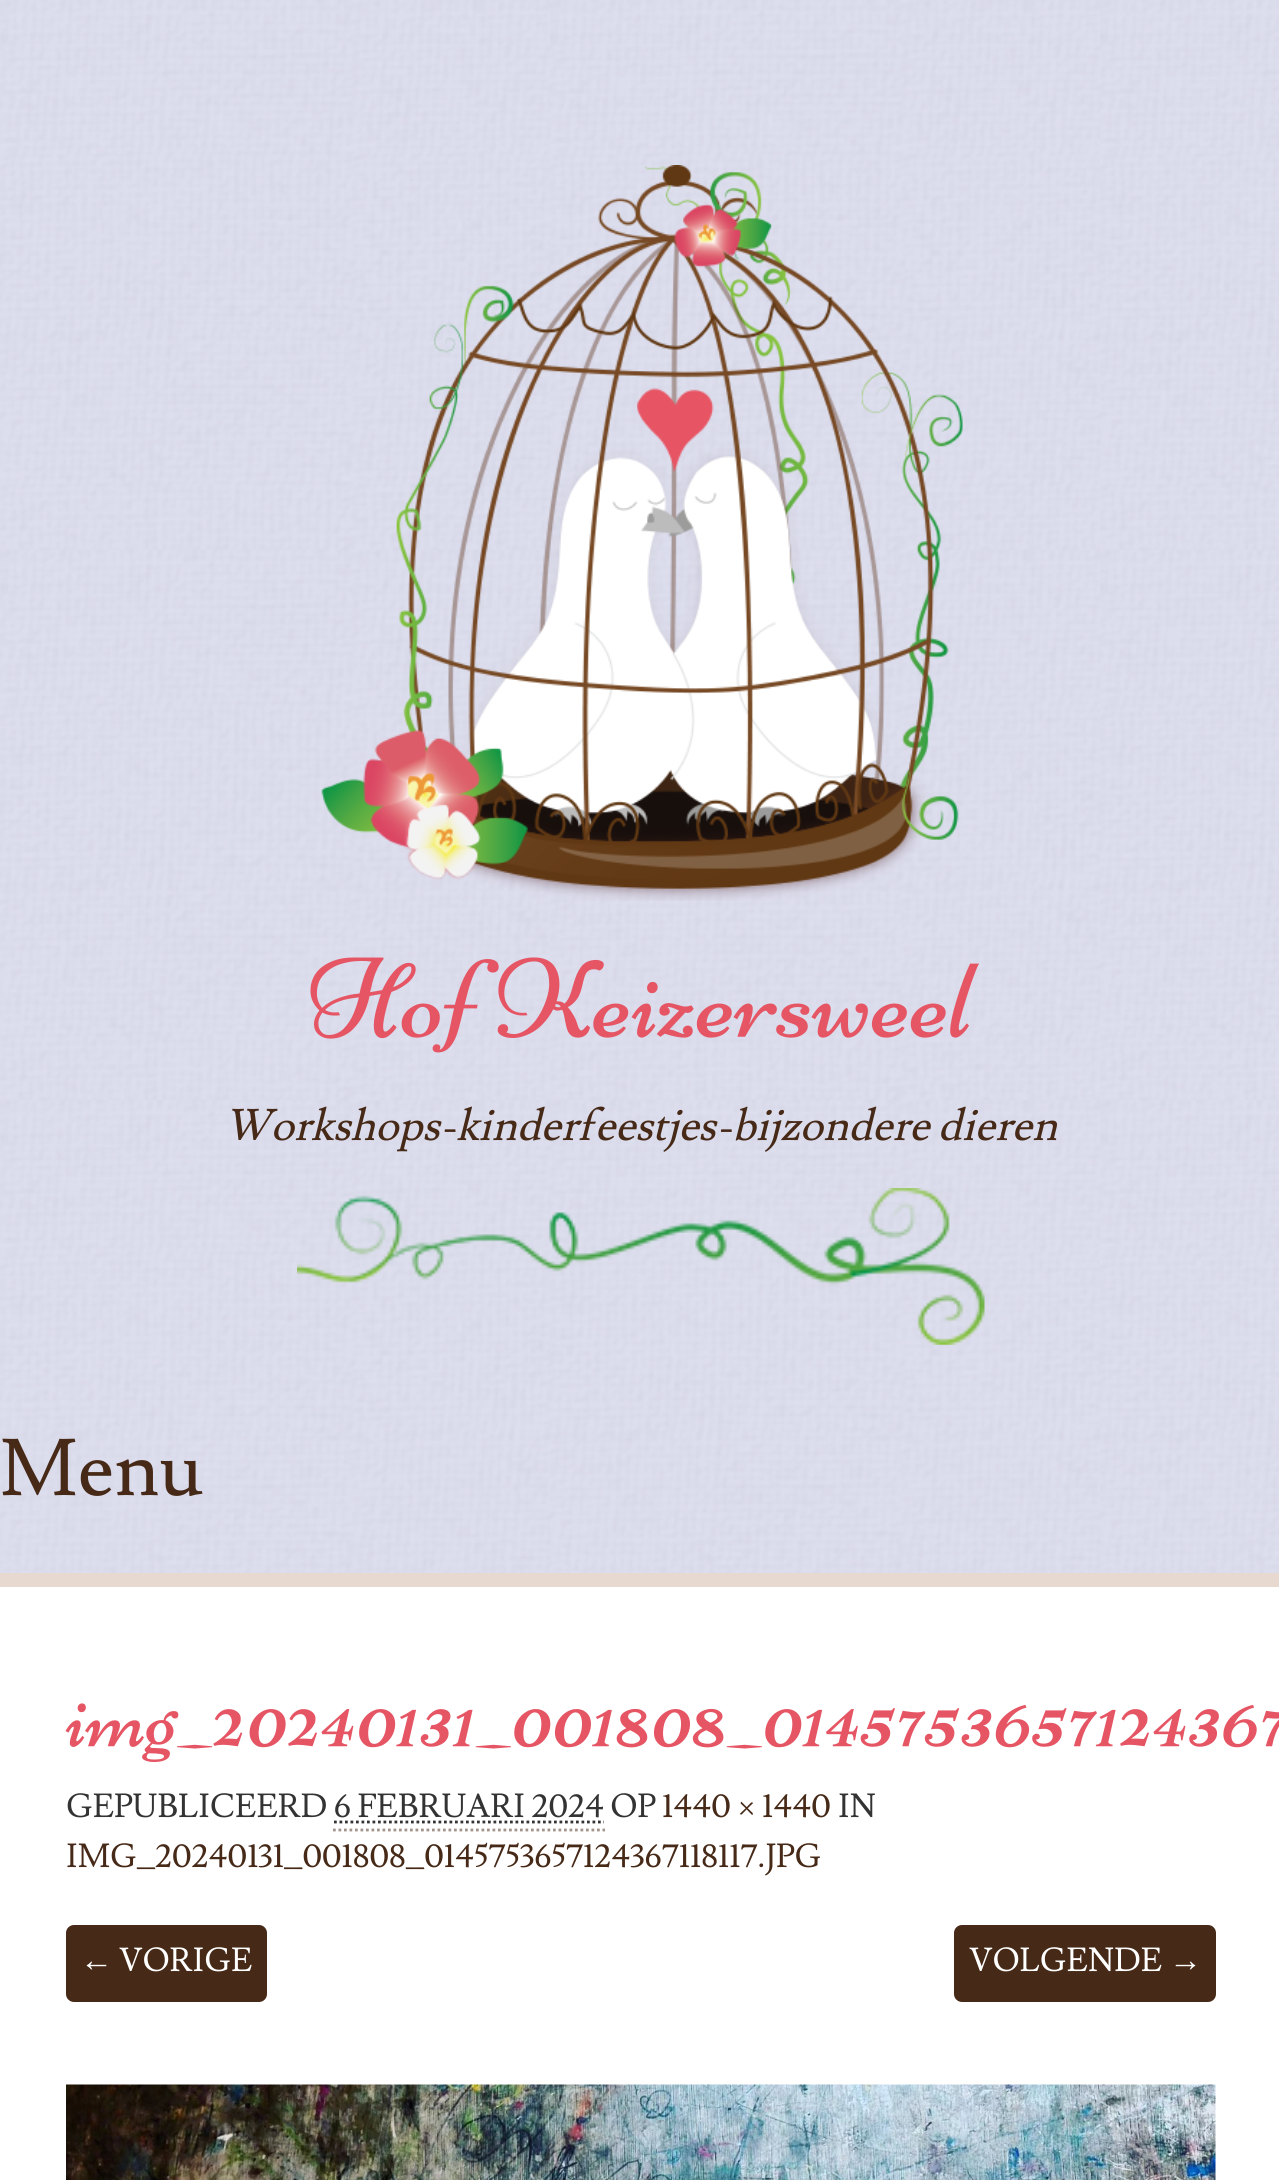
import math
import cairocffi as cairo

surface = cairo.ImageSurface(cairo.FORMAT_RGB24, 1279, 2180)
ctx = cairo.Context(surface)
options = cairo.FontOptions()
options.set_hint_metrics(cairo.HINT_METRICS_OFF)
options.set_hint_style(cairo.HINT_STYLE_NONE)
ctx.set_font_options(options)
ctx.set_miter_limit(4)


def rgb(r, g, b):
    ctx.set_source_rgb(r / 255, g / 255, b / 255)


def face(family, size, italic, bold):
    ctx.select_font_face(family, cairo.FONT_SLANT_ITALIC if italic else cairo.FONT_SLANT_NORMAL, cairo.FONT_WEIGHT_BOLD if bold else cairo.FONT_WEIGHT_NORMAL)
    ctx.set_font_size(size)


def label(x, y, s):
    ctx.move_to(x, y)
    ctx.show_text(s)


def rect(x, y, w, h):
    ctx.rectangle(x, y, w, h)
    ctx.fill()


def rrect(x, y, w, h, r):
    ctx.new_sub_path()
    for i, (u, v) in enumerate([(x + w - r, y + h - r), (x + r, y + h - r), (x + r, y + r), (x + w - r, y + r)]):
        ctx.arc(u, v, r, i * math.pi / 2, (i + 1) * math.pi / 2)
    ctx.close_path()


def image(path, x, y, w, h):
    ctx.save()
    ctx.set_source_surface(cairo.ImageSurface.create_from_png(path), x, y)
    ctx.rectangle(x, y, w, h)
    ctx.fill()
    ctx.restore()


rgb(218, 219, 237)
ctx.paint()
image('image0.png', 0, 0, 1279, 1573)
image('image1.png', 321, 165, 642, 736)
image('image2.png', 310, 957, 669, 96)
face('Lusitana', 44, 1, 0)
rgb(70, 41, 23)
label(224, 1140, 'Workshops-kinderfeestjes-bijzondere dieren')
image('image3.png', 297, 1188, 688, 157)
face('Lusitana', 79, 0, 0)
label(0, 1495, 'Menu')
rgb(255, 255, 255)
rect(0, 1587, 1279, 593)
rgb(232, 217, 208)
rect(0, 1573, 1279, 14)
image('image4.png', 65, 1703, 1214, 59)
face('Lusitana', 33, 0, 0)
rgb(51, 51, 51)
label(66, 1817, 'GEPUBLICEERD 6 FEBRUARI 2024 OP')
rgb(70, 41, 23)
label(662, 1817, '1440 × 1440')
rgb(51, 51, 51)
label(838, 1817, 'IN')
ctx.new_path()
ctx.move_to(334, 1822)
ctx.line_to(604, 1822)
ctx.set_line_width(2.8)
ctx.set_dash([2.75, 2.75])
ctx.stroke()
ctx.new_path()
ctx.move_to(333, 1830)
ctx.line_to(605, 1830)
rgb(163, 148, 139)
ctx.stroke()
rgb(70, 41, 23)
label(66, 1867, 'IMG_20240131_001808_0145753657124367118117.JPG')
rrect(66, 1925, 201, 77, 8)
ctx.fill()
face('Liberation Serif', 33, 0, 0)
rgb(255, 255, 255)
label(80, 1971, '←')
face('Lusitana', 33, 0, 0)
label(119, 1971, 'VORIGE')
rgb(70, 41, 23)
rrect(954, 1925, 262, 77, 8)
ctx.fill()
rgb(255, 255, 255)
label(969, 1971, 'VOLGENDE')
face('Liberation Serif', 33, 0, 0)
label(1169, 1971, '→')
image('image5.png', 66, 2084, 1150, 96)
surface.write_to_png('render.png')
